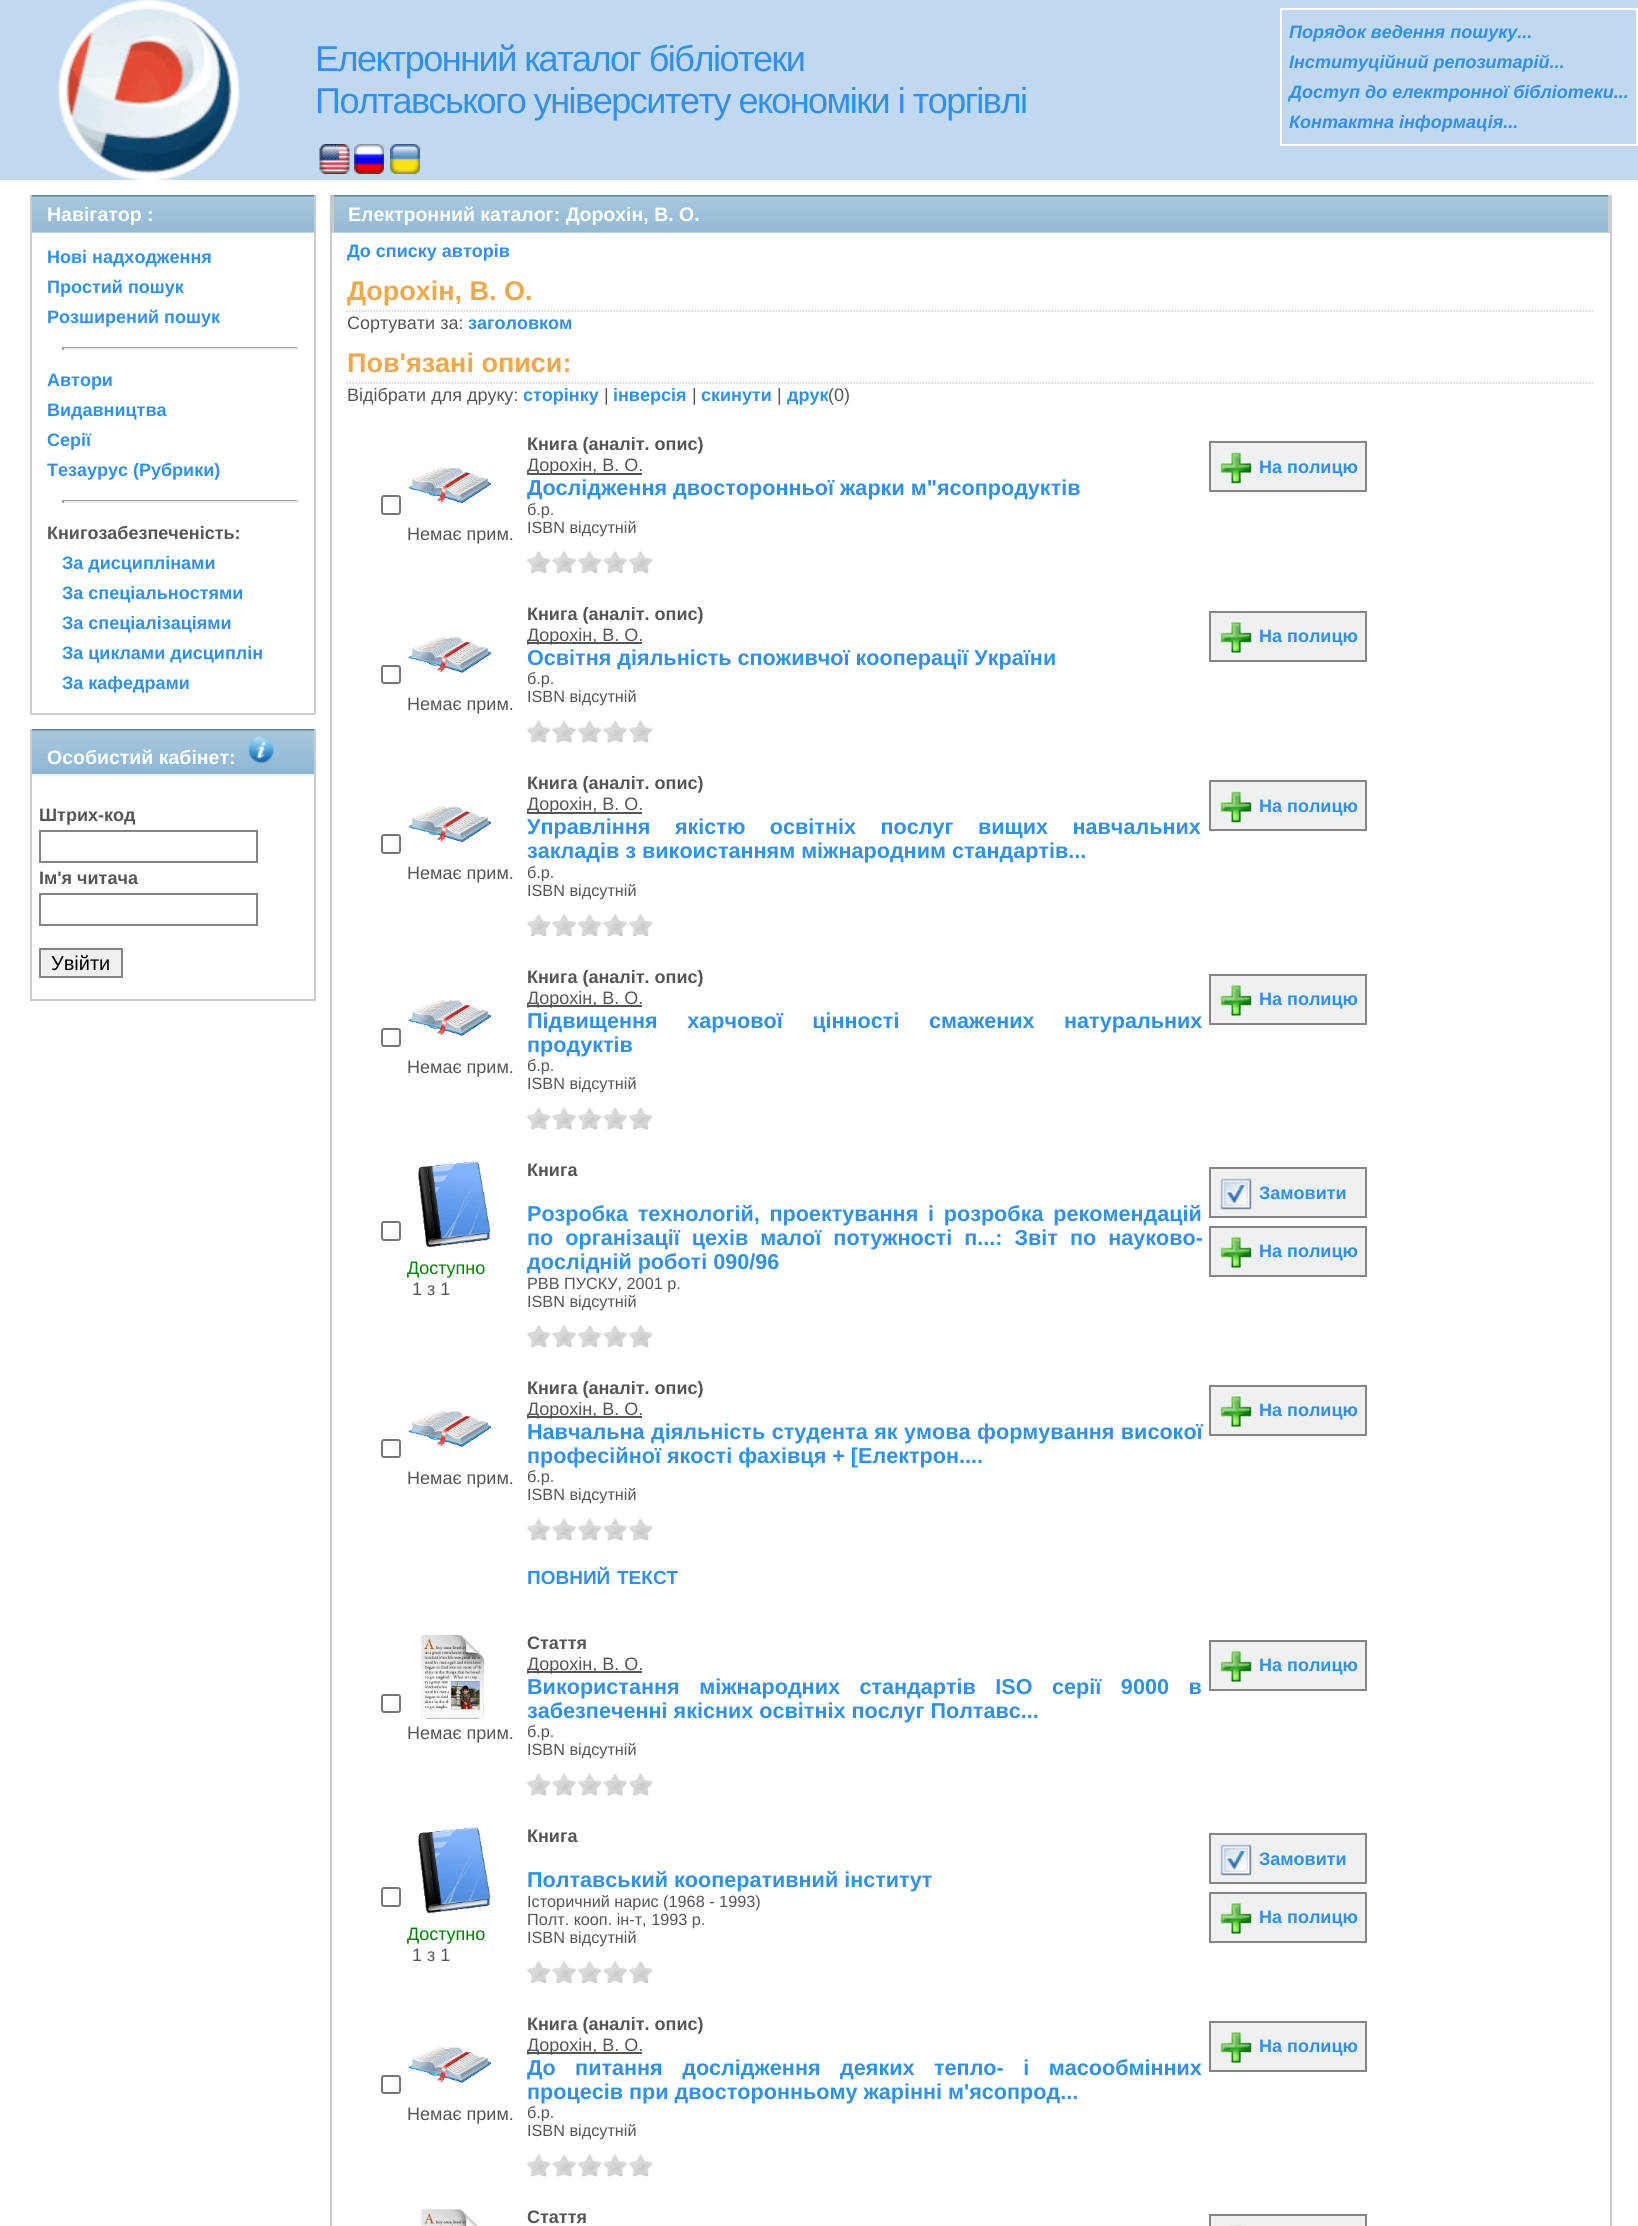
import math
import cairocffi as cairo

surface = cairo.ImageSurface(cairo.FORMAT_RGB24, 1638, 2226)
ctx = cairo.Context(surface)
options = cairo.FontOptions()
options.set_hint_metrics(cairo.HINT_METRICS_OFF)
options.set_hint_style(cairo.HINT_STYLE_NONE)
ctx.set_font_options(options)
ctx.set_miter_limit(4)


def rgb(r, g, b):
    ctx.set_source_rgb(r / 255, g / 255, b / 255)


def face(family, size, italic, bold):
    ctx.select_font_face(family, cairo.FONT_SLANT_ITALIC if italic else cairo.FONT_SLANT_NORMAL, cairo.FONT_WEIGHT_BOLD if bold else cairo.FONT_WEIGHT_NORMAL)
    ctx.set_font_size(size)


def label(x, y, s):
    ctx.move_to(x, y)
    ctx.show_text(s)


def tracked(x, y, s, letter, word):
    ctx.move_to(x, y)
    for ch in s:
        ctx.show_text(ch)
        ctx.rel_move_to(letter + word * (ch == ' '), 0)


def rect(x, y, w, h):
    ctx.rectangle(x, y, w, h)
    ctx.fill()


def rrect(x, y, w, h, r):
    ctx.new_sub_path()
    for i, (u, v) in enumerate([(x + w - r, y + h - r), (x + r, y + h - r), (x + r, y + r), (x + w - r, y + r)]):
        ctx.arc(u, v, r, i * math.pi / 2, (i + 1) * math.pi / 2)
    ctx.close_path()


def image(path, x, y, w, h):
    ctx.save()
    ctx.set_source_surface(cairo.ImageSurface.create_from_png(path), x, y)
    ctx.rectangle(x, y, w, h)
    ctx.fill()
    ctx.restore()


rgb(255, 255, 255)
ctx.paint()
rgb(192, 216, 240)
rect(0, 0, 1638, 180)
image('image0.png', 58, 0, 182, 180)
face('Liberation Sans', 36, 0, 0)
rgb(48, 144, 240)
tracked(315, 71, 'Електронний каталог бібліотеки', -1.5, 0)
tracked(315, 113, 'Полтавського університету економіки і торгівлі', -1.5, 0)
image('image1.png', 319, 144, 31, 30)
image('image2.png', 354, 144, 30, 30)
image('image3.png', 390, 144, 30, 30)
ctx.rectangle(1281, 9, 356, 136)
rgb(255, 255, 255)
ctx.stroke()
face('Liberation Sans', 18, 1, 1)
rgb(48, 144, 240)
label(1289, 38, 'Порядок ведення пошуку...')
label(1289, 68, 'Інституційний репозитарій...')
label(1289, 98, 'Доступ до електронної бібліотеки...')
label(1289, 128, 'Контактна інформація...')
rgb(238, 240, 241)
rect(32, 232, 282, 1)
image('image4.png', 32, 195, 282, 38)
rgb(204, 204, 204)
rect(314, 195, 2, 519)
rect(30, 195, 2, 38)
face('Liberation Sans', 19.5, 0, 1)
rgb(255, 255, 255)
label(47, 221, 'Навігатор :')
rgb(204, 204, 204)
rect(30, 713, 285, 2)
rect(30, 233, 2, 481)
face('Liberation Sans', 18, 0, 1)
rgb(48, 144, 240)
label(47, 263, 'Нові надходження')
label(47, 293, 'Простий пошук')
label(47, 323, 'Розширений пошук')
rgb(159, 159, 159)
rect(62, 347, 237, 1)
rgb(238, 238, 238)
rect(297, 347, 2, 3)
rect(62, 348, 237, 2)
rgb(159, 159, 159)
rect(62, 347, 2, 3)
rgb(48, 144, 240)
label(47, 386, 'Автори')
label(47, 416, 'Видавництва')
label(47, 446, 'Серії')
label(47, 476, 'Тезаурус (Рубрики)')
rgb(159, 159, 159)
rect(62, 500, 237, 1)
rgb(238, 238, 238)
rect(297, 500, 2, 3)
rect(62, 501, 237, 2)
rgb(159, 159, 159)
rect(62, 500, 2, 3)
rgb(85, 85, 85)
label(47, 539, 'Книгозабезпеченість:')
rgb(48, 144, 240)
label(62, 569, 'За дисциплінами')
label(62, 599, 'За спеціальностями')
label(62, 629, 'За спеціалізаціями')
label(62, 659, 'За циклами дисциплін')
label(62, 689, 'За кафедрами')
rgb(238, 240, 241)
rect(32, 774, 282, 2)
image('image5.png', 32, 729, 282, 45)
rgb(204, 204, 204)
rect(314, 729, 2, 272)
rect(30, 729, 2, 47)
face('Liberation Sans', 19.5, 0, 1)
rgb(255, 255, 255)
label(47, 764, 'Особистий кабінет:')
image('image6.png', 247, 736, 28, 28)
rgb(204, 204, 204)
rect(30, 999, 285, 2)
rect(30, 776, 2, 225)
face('Liberation Sans', 18, 0, 1)
rgb(85, 85, 85)
label(39, 821, 'Штрих-код')
ctx.rectangle(40, 831, 217, 31)
rgb(132, 131, 136)
ctx.stroke()
rgb(85, 85, 85)
label(39, 884, 'Ім\'я читача')
ctx.rectangle(40, 894, 217, 31)
rgb(132, 131, 136)
ctx.stroke()
rgb(238, 240, 241)
ctx.rectangle(40, 949, 82, 28)
ctx.fill_preserve()
rgb(132, 131, 136)
ctx.stroke()
face('Liberation Sans', 20, 0, 0)
rgb(0, 0, 0)
label(51, 970, 'Увійти')
rgb(204, 204, 204)
rect(1610, 195, 2, 2031)
rect(330, 195, 2, 2031)
rgb(238, 240, 241)
rect(334, 232, 1274, 1)
image('image7.png', 331, 195, 1277, 38)
rgb(204, 204, 204)
rect(1608, 195, 2, 38)
rect(332, 195, 2, 38)
face('Liberation Sans', 19.5, 0, 1)
rgb(255, 255, 255)
label(348, 221, 'Електронний каталог: Дорохін, В. О.')
face('Liberation Sans', 18, 0, 1)
rgb(48, 144, 240)
label(347, 257, 'До списку авторів')
ctx.new_path()
ctx.move_to(346.5, 311)
ctx.line_to(1594.5, 311)
rgb(204, 204, 204)
ctx.set_line_width(1.5)
ctx.set_dash([1.5, 1.5])
ctx.stroke()
face('Liberation Sans', 27, 0, 1)
rgb(240, 168, 72)
label(347, 300, 'Дорохін, В. О.')
face('Liberation Sans', 18, 0, 0)
rgb(85, 85, 85)
label(347, 329, 'Сортувати за:')
face('Liberation Sans', 18, 0, 1)
rgb(48, 144, 240)
label(468, 329, 'заголовком')
ctx.new_path()
ctx.move_to(346.5, 383)
ctx.line_to(1594.5, 383)
rgb(204, 204, 204)
ctx.stroke()
face('Liberation Sans', 27, 0, 1)
rgb(240, 168, 72)
label(347, 372, 'Пов\'язані описи:')
face('Liberation Sans', 18, 0, 0)
rgb(85, 85, 85)
label(347, 401, 'Відібрати для друку:')
face('Liberation Sans', 18, 0, 1)
rgb(48, 144, 240)
label(523, 401, 'сторінку')
face('Liberation Sans', 18, 0, 0)
rgb(85, 85, 85)
label(604, 401, '|')
face('Liberation Sans', 18, 0, 1)
rgb(48, 144, 240)
label(613, 401, 'інверсія')
face('Liberation Sans', 18, 0, 0)
rgb(85, 85, 85)
label(692, 401, '|')
face('Liberation Sans', 18, 0, 1)
rgb(48, 144, 240)
label(701, 401, 'скинути')
face('Liberation Sans', 18, 0, 0)
rgb(85, 85, 85)
label(777, 401, '|')
face('Liberation Sans', 18, 0, 1)
rgb(48, 144, 240)
label(787, 401, 'друк')
face('Liberation Sans', 18, 0, 0)
rgb(85, 85, 85)
label(828, 401, '(0)')
face('Liberation Sans', 18, 0, 1)
label(527, 450, 'Книга (аналіт. опис)')
rect(527, 473, 115, 2)
face('Liberation Sans', 18, 0, 0)
label(527, 471, 'Дорохін, В. О.')
face('Liberation Sans', 21.6, 0, 1)
rgb(48, 144, 240)
label(527, 495, 'Дослідження двосторонньої жарки м"ясопродуктів')
face('Liberation Sans', 16.25, 0, 0)
rgb(85, 85, 85)
label(527, 515, 'б.р.')
label(527, 533, 'ISBN відсутній')
image('image8.png', 526, 551, 25, 22)
image('image9.png', 552, 550, 24, 23)
image('image8.png', 577, 551, 25, 22)
image('image10.png', 603, 550, 24, 23)
image('image8.png', 628, 551, 25, 22)
rgb(238, 240, 241)
ctx.rectangle(1210, 442, 156, 49)
ctx.fill_preserve()
rgb(132, 131, 136)
ctx.set_line_width(2)
ctx.set_dash([])
ctx.stroke()
image('image11.png', 1220, 452, 32, 32)
face('Liberation Sans', 18, 0, 1)
rgb(48, 144, 240)
label(1259, 473, 'На полицю')
rrect(382, 496, 18, 18, 2)
rgb(118, 118, 118)
ctx.stroke()
image('image12.png', 408, 467, 83, 36)
face('Liberation Sans', 18, 0, 0)
rgb(85, 85, 85)
label(407, 540, 'Немає прим.')
face('Liberation Sans', 18, 0, 1)
label(527, 620, 'Книга (аналіт. опис)')
rect(527, 642, 115, 2)
face('Liberation Sans', 18, 0, 0)
label(527, 641, 'Дорохін, В. О.')
face('Liberation Sans', 21.6, 0, 1)
rgb(48, 144, 240)
label(527, 665, 'Освітня діяльність споживчої кооперації України')
face('Liberation Sans', 16.25, 0, 0)
rgb(85, 85, 85)
label(527, 684, 'б.р.')
label(527, 702, 'ISBN відсутній')
image('image13.png', 526, 720, 25, 23)
image('image14.png', 552, 720, 24, 23)
image('image13.png', 577, 720, 25, 23)
image('image15.png', 603, 720, 24, 23)
image('image13.png', 628, 720, 25, 23)
rgb(238, 240, 241)
ctx.rectangle(1210, 612, 156, 49)
ctx.fill_preserve()
rgb(132, 131, 136)
ctx.stroke()
image('image16.png', 1220, 622, 32, 31)
face('Liberation Sans', 18, 0, 1)
rgb(48, 144, 240)
label(1259, 642, 'На полицю')
rrect(382, 666, 18, 17, 2)
rgb(118, 118, 118)
ctx.stroke()
image('image17.png', 408, 637, 83, 36)
face('Liberation Sans', 18, 0, 0)
rgb(85, 85, 85)
label(407, 710, 'Немає прим.')
face('Liberation Sans', 18, 0, 1)
label(527, 789, 'Книга (аналіт. опис)')
rect(527, 812, 115, 2)
face('Liberation Sans', 18, 0, 0)
label(527, 810, 'Дорохін, В. О.')
face('Liberation Sans', 21.6, 0, 1)
rgb(48, 144, 240)
tracked(527, 834, 'Управління якістю освітніх послуг вищих навчальних', 0, 18.5)
label(527, 858, 'закладів з викоистанням міжнародним стандартів...')
face('Liberation Sans', 16.25, 0, 0)
rgb(85, 85, 85)
label(527, 878, 'б.р.')
label(527, 896, 'ISBN відсутній')
image('image8.png', 526, 914, 25, 22)
image('image9.png', 552, 913, 24, 23)
image('image8.png', 577, 914, 25, 22)
image('image10.png', 603, 913, 24, 23)
image('image8.png', 628, 914, 25, 22)
rgb(238, 240, 241)
ctx.rectangle(1210, 781, 156, 49)
ctx.fill_preserve()
rgb(132, 131, 136)
ctx.stroke()
image('image11.png', 1220, 791, 32, 32)
face('Liberation Sans', 18, 0, 1)
rgb(48, 144, 240)
label(1259, 812, 'На полицю')
rrect(382, 835, 18, 18, 2)
rgb(118, 118, 118)
ctx.stroke()
image('image12.png', 408, 806, 83, 36)
face('Liberation Sans', 18, 0, 0)
rgb(85, 85, 85)
label(407, 879, 'Немає прим.')
face('Liberation Sans', 18, 0, 1)
label(527, 983, 'Книга (аналіт. опис)')
rect(527, 1005, 115, 2)
face('Liberation Sans', 18, 0, 0)
label(527, 1004, 'Дорохін, В. О.')
face('Liberation Sans', 21.6, 0, 1)
rgb(48, 144, 240)
tracked(527, 1028, 'Підвищення харчової цінності смажених натуральних', 0, 23.5)
label(527, 1052, 'продуктів')
face('Liberation Sans', 16.25, 0, 0)
rgb(85, 85, 85)
label(527, 1071, 'б.р.')
label(527, 1089, 'ISBN відсутній')
image('image13.png', 526, 1107, 25, 23)
image('image14.png', 552, 1107, 24, 23)
image('image13.png', 577, 1107, 25, 23)
image('image15.png', 603, 1107, 24, 23)
image('image13.png', 628, 1107, 25, 23)
rgb(238, 240, 241)
ctx.rectangle(1210, 975, 156, 49)
ctx.fill_preserve()
rgb(132, 131, 136)
ctx.stroke()
image('image16.png', 1220, 985, 32, 31)
face('Liberation Sans', 18, 0, 1)
rgb(48, 144, 240)
label(1259, 1005, 'На полицю')
rrect(382, 1029, 18, 17, 2)
rgb(118, 118, 118)
ctx.stroke()
image('image17.png', 408, 1000, 83, 36)
face('Liberation Sans', 18, 0, 0)
rgb(85, 85, 85)
label(407, 1073, 'Немає прим.')
face('Liberation Sans', 18, 0, 1)
label(527, 1176, 'Книга')
face('Liberation Sans', 21.6, 0, 1)
rgb(48, 144, 240)
tracked(527, 1221, 'Розробка технологій, проектування і розробка рекомендацій', 0, 3.75)
tracked(527, 1245, 'по організації цехів малої потужності п...: Звіт по науково-', 0, 6)
label(527, 1269, 'дослідній роботі 090/96')
face('Liberation Sans', 16.25, 0, 0)
rgb(85, 85, 85)
label(527, 1289, 'РВВ ПУСКУ, 2001 р.')
label(527, 1307, 'ISBN відсутній')
image('image8.png', 526, 1325, 25, 22)
image('image9.png', 552, 1324, 24, 23)
image('image8.png', 577, 1325, 25, 22)
image('image10.png', 603, 1324, 24, 23)
image('image8.png', 628, 1325, 25, 22)
rgb(238, 240, 241)
ctx.rectangle(1210, 1168, 156, 49)
ctx.fill_preserve()
rgb(132, 131, 136)
ctx.stroke()
image('image18.png', 1220, 1178, 32, 32)
face('Liberation Sans', 18, 0, 1)
rgb(48, 144, 240)
label(1259, 1199, 'Замовити')
rgb(238, 240, 241)
ctx.rectangle(1210, 1227, 156, 49)
ctx.fill_preserve()
rgb(132, 131, 136)
ctx.stroke()
image('image16.png', 1220, 1237, 32, 31)
rgb(48, 144, 240)
label(1259, 1257, 'На полицю')
rrect(382, 1222, 18, 18, 2)
rgb(118, 118, 118)
ctx.stroke()
image('image19.png', 418, 1161, 73, 87)
face('Liberation Sans', 18, 0, 0)
rgb(0, 128, 0)
label(407, 1274, 'Доступно')
rgb(85, 85, 85)
label(412, 1295, '1 з 1')
face('Liberation Sans', 18, 0, 1)
label(527, 1394, 'Книга (аналіт. опис)')
rect(527, 1416, 115, 2)
face('Liberation Sans', 18, 0, 0)
label(527, 1415, 'Дорохін, В. О.')
face('Liberation Sans', 21.6, 0, 1)
rgb(48, 144, 240)
tracked(527, 1439, 'Навчальна діяльність студента як умова формування високої', 0, 0.5)
label(527, 1463, 'професійної якості фахівця + [Електрон....')
face('Liberation Sans', 16.25, 0, 0)
rgb(85, 85, 85)
label(527, 1482, 'б.р.')
label(527, 1500, 'ISBN відсутній')
image('image13.png', 526, 1518, 25, 23)
image('image14.png', 552, 1518, 24, 23)
image('image13.png', 577, 1518, 25, 23)
image('image15.png', 603, 1518, 24, 23)
image('image13.png', 628, 1518, 25, 23)
face('Liberation Sans', 19, 0, 1)
rgb(48, 144, 240)
label(527, 1584, 'ПОВНИЙ')
label(617, 1584, 'ТЕКСТ')
rgb(238, 240, 241)
ctx.rectangle(1210, 1386, 156, 49)
ctx.fill_preserve()
rgb(132, 131, 136)
ctx.stroke()
image('image16.png', 1220, 1396, 32, 31)
face('Liberation Sans', 18, 0, 1)
rgb(48, 144, 240)
label(1259, 1416, 'На полицю')
rrect(382, 1440, 18, 17, 2)
rgb(118, 118, 118)
ctx.stroke()
image('image17.png', 408, 1411, 83, 36)
face('Liberation Sans', 18, 0, 0)
rgb(85, 85, 85)
label(407, 1484, 'Немає прим.')
face('Liberation Sans', 18, 0, 1)
label(527, 1649, 'Стаття')
rect(527, 1671, 115, 2)
face('Liberation Sans', 18, 0, 0)
label(527, 1670, 'Дорохін, В. О.')
face('Liberation Sans', 21.6, 0, 1)
rgb(48, 144, 240)
tracked(527, 1694, 'Використання міжнародних стандартів ІSO серії 9000 в', 0, 13.5)
label(527, 1718, 'забезпеченні якісних освітніх послуг Полтавс...')
face('Liberation Sans', 16.25, 0, 0)
rgb(85, 85, 85)
label(527, 1737, 'б.р.')
label(527, 1755, 'ISBN відсутній')
image('image13.png', 526, 1773, 25, 23)
image('image14.png', 552, 1773, 24, 23)
image('image13.png', 577, 1773, 25, 23)
image('image15.png', 603, 1773, 24, 23)
image('image13.png', 628, 1773, 25, 23)
rgb(238, 240, 241)
ctx.rectangle(1210, 1641, 156, 49)
ctx.fill_preserve()
rgb(132, 131, 136)
ctx.stroke()
image('image16.png', 1220, 1651, 32, 31)
face('Liberation Sans', 18, 0, 1)
rgb(48, 144, 240)
label(1259, 1671, 'На полицю')
rrect(382, 1695, 18, 17, 2)
rgb(118, 118, 118)
ctx.stroke()
image('image20.png', 421, 1635, 63, 84)
face('Liberation Sans', 18, 0, 0)
rgb(85, 85, 85)
label(407, 1739, 'Немає прим.')
face('Liberation Sans', 18, 0, 1)
label(527, 1842, 'Книга')
face('Liberation Sans', 21.6, 0, 1)
rgb(48, 144, 240)
label(527, 1887, 'Полтавський кооперативний інститут')
face('Liberation Sans', 16.25, 0, 0)
rgb(85, 85, 85)
label(527, 1907, 'Історичний нарис (1968 - 1993)')
label(527, 1925, 'Полт. кооп. ін-т, 1993 р.')
label(527, 1943, 'ISBN відсутній')
image('image8.png', 526, 1961, 25, 22)
image('image9.png', 552, 1960, 24, 23)
image('image8.png', 577, 1961, 25, 22)
image('image10.png', 603, 1960, 24, 23)
image('image8.png', 628, 1961, 25, 22)
rgb(238, 240, 241)
ctx.rectangle(1210, 1834, 156, 49)
ctx.fill_preserve()
rgb(132, 131, 136)
ctx.stroke()
image('image18.png', 1220, 1844, 32, 32)
face('Liberation Sans', 18, 0, 1)
rgb(48, 144, 240)
label(1259, 1865, 'Замовити')
rgb(238, 240, 241)
ctx.rectangle(1210, 1893, 156, 49)
ctx.fill_preserve()
rgb(132, 131, 136)
ctx.stroke()
image('image16.png', 1220, 1903, 32, 31)
rgb(48, 144, 240)
label(1259, 1923, 'На полицю')
rrect(382, 1888, 18, 18, 2)
rgb(118, 118, 118)
ctx.stroke()
image('image19.png', 418, 1827, 73, 87)
face('Liberation Sans', 18, 0, 0)
rgb(0, 128, 0)
label(407, 1940, 'Доступно')
rgb(85, 85, 85)
label(412, 1961, '1 з 1')
face('Liberation Sans', 18, 0, 1)
label(527, 2030, 'Книга (аналіт. опис)')
rect(527, 2052, 115, 2)
face('Liberation Sans', 18, 0, 0)
label(527, 2051, 'Дорохін, В. О.')
face('Liberation Sans', 21.6, 0, 1)
rgb(48, 144, 240)
tracked(527, 2075, 'До питання дослідження деяких тепло- і масообмінних', 0, 13.5)
label(527, 2099, 'процесів при двосторонньому жарінні м\'ясопрод...')
face('Liberation Sans', 16.25, 0, 0)
rgb(85, 85, 85)
label(527, 2118, 'б.р.')
label(527, 2136, 'ISBN відсутній')
image('image13.png', 526, 2154, 25, 23)
image('image14.png', 552, 2154, 24, 23)
image('image13.png', 577, 2154, 25, 23)
image('image15.png', 603, 2154, 24, 23)
image('image13.png', 628, 2154, 25, 23)
rgb(238, 240, 241)
ctx.rectangle(1210, 2022, 156, 49)
ctx.fill_preserve()
rgb(132, 131, 136)
ctx.stroke()
image('image16.png', 1220, 2032, 32, 31)
face('Liberation Sans', 18, 0, 1)
rgb(48, 144, 240)
label(1259, 2052, 'На полицю')
rrect(382, 2076, 18, 17, 2)
rgb(118, 118, 118)
ctx.stroke()
image('image17.png', 408, 2047, 83, 36)
face('Liberation Sans', 18, 0, 0)
rgb(85, 85, 85)
label(407, 2120, 'Немає прим.')
image('image21.png', 421, 2209, 57, 17)
face('Liberation Sans', 18, 0, 1)
label(527, 2223, 'Стаття')
rgb(238, 240, 241)
ctx.rectangle(1210, 2215, 156, 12)
ctx.fill_preserve()
rgb(132, 131, 136)
ctx.stroke()
image('image22.png', 1231, 2225, 10, 1)
surface.write_to_png('render.png')
